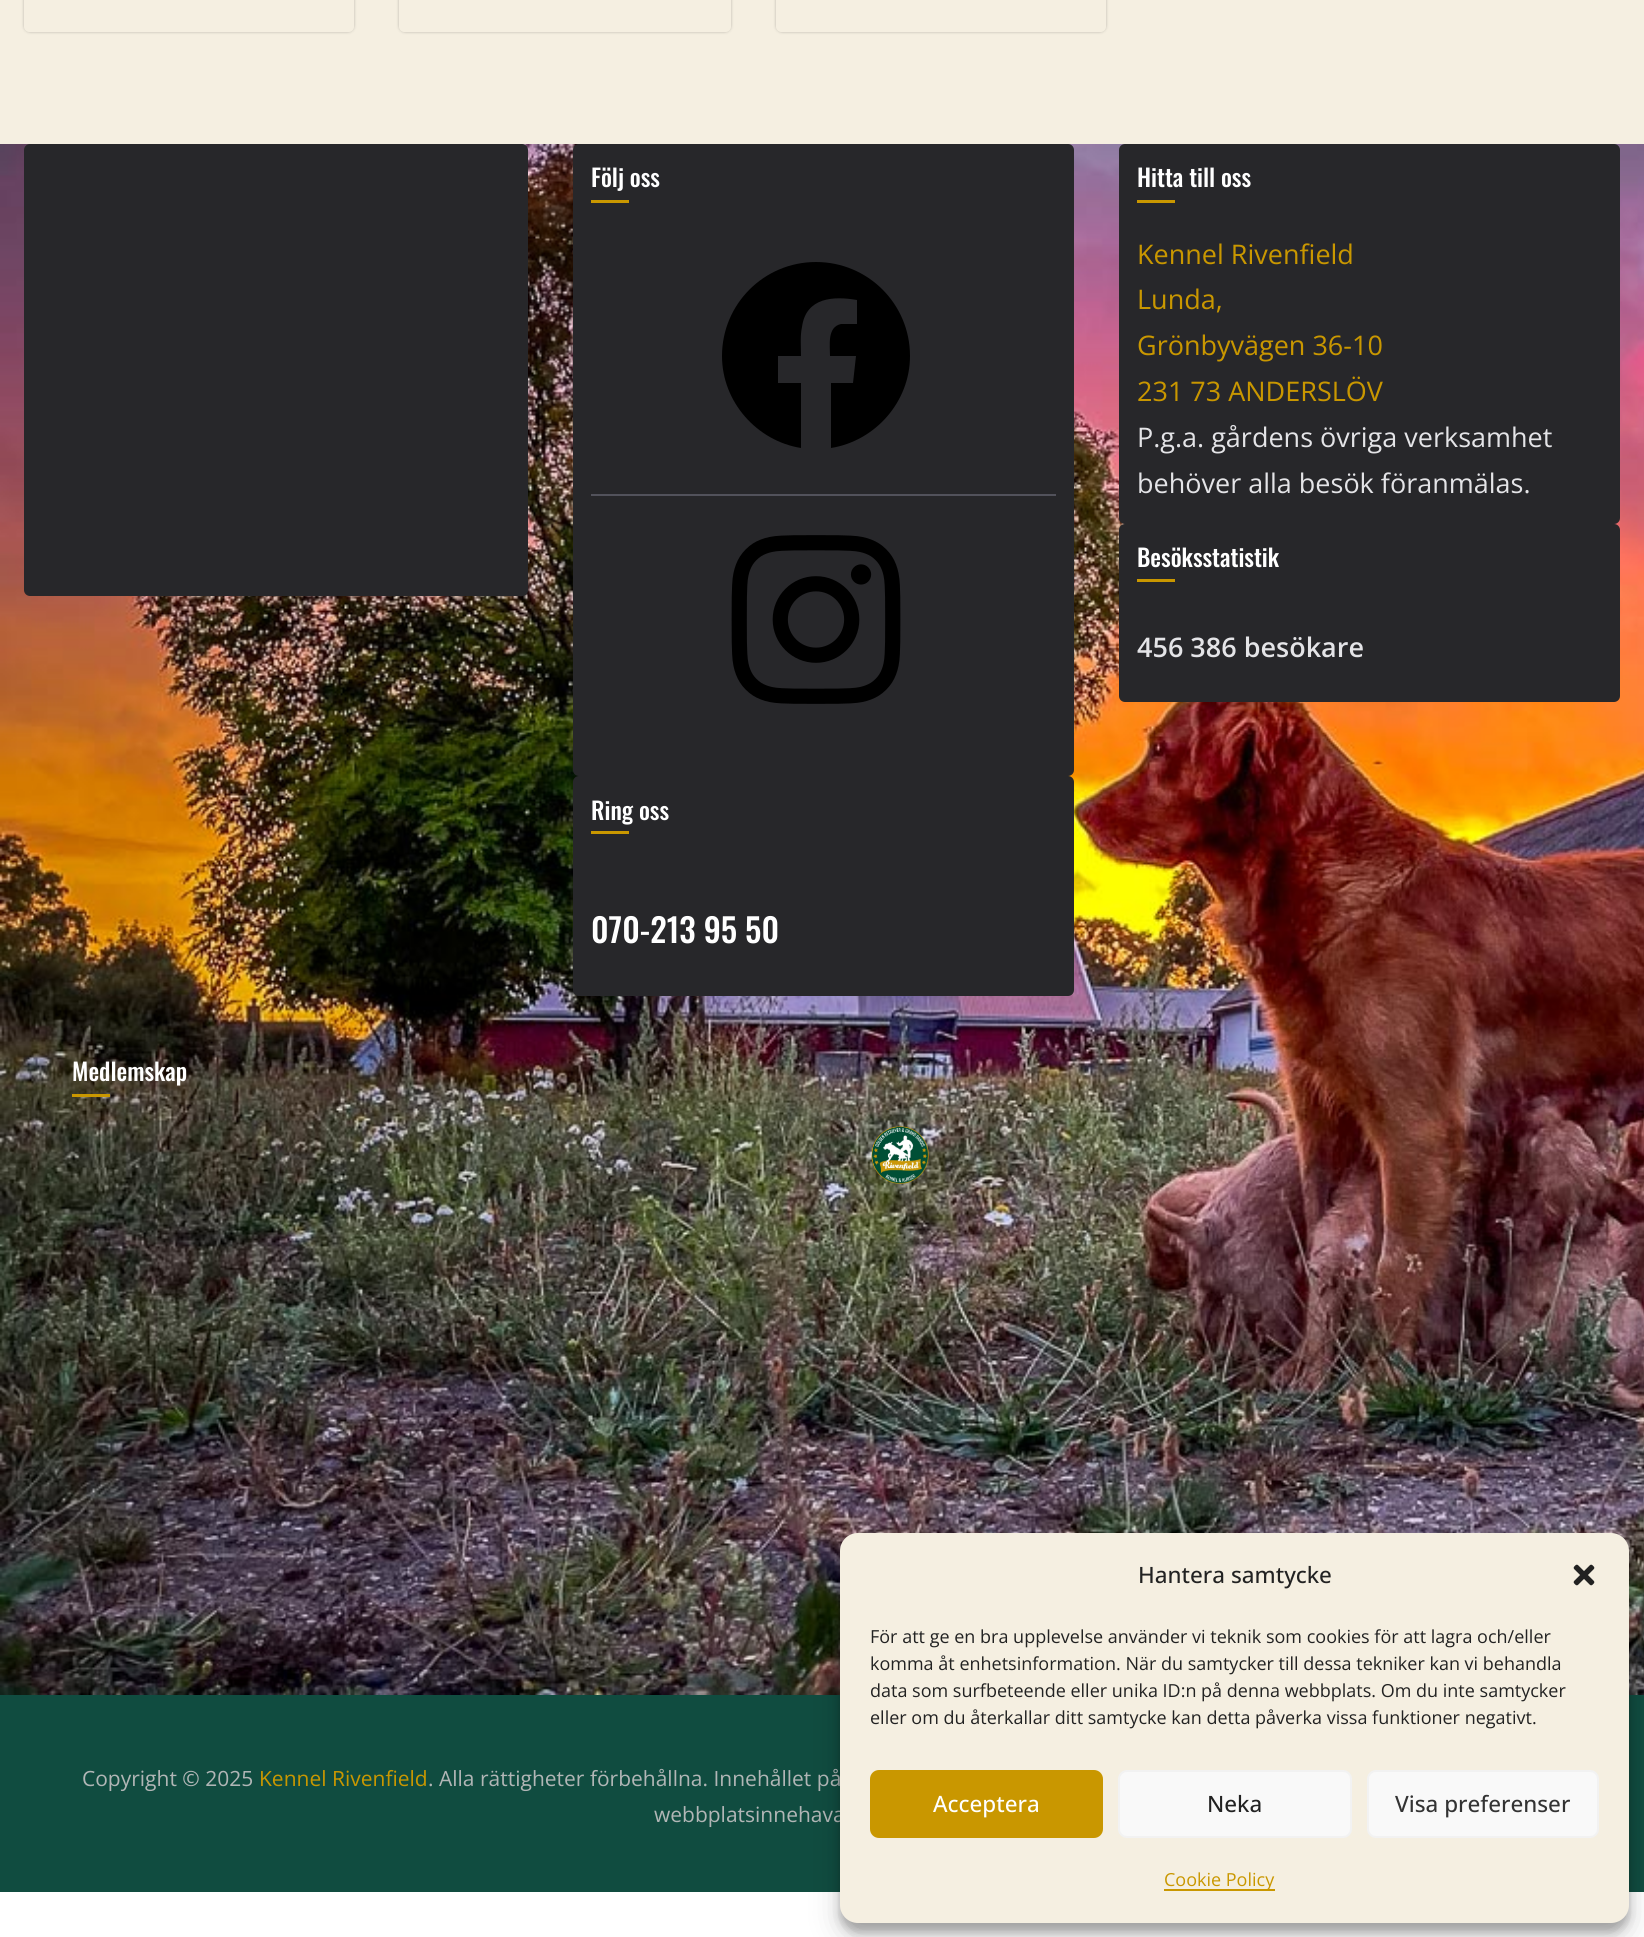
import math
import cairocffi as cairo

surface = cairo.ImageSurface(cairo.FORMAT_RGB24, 1644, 1937)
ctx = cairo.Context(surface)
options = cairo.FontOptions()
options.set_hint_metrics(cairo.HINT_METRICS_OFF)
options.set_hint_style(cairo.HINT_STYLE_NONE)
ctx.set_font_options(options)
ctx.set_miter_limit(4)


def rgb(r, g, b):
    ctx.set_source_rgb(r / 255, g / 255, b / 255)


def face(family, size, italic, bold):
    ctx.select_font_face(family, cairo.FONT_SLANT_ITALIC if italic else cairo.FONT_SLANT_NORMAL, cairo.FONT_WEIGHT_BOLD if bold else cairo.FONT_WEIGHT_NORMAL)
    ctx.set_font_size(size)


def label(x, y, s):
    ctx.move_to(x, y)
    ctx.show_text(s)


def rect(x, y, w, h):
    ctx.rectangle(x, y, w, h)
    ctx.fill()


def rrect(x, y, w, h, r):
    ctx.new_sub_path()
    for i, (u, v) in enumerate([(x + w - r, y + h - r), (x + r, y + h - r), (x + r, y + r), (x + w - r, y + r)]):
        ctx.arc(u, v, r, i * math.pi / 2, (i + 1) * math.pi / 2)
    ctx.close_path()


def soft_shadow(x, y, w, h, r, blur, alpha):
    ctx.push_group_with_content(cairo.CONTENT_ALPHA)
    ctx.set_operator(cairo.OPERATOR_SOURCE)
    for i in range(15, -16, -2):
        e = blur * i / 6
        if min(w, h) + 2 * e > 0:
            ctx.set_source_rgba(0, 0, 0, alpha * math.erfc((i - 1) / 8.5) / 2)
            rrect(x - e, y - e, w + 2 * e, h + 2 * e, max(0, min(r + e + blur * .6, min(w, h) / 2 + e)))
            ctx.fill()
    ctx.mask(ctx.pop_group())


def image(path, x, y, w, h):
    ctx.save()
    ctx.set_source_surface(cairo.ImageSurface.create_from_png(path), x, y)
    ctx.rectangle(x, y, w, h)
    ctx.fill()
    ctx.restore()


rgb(255, 255, 255)
ctx.paint()
rgb(245, 239, 225)
rect(0, 0, 1644, 144)
ctx.save()
ctx.set_fill_rule(cairo.FILL_RULE_EVEN_ODD)
ctx.new_path()
ctx.move_to(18, 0)
ctx.line_to(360, 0)
ctx.line_to(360, 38)
ctx.line_to(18, 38)
ctx.close_path()
ctx.move_to(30, -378)
ctx.line_to(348, -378)
ctx.curve_to(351.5, -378, 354, -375.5, 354, -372)
ctx.line_to(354, 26)
ctx.curve_to(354, 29.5, 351.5, 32, 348, 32)
ctx.line_to(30, 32)
ctx.curve_to(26.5, 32, 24, 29.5, 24, 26)
ctx.line_to(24, -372)
ctx.curve_to(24, -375.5, 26.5, -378, 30, -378)
ctx.close_path()
ctx.clip()
rgb(0, 0, 0)
soft_shadow(24, -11, 330, 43, 6, 1.5, 0.24)
ctx.restore()
ctx.save()
ctx.set_fill_rule(cairo.FILL_RULE_EVEN_ODD)
ctx.new_path()
ctx.move_to(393, 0)
ctx.line_to(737, 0)
ctx.line_to(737, 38)
ctx.line_to(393, 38)
ctx.close_path()
ctx.move_to(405, -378)
ctx.line_to(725, -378)
ctx.curve_to(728.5, -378, 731, -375.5, 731, -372)
ctx.line_to(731, 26)
ctx.curve_to(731, 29.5, 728.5, 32, 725, 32)
ctx.line_to(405, 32)
ctx.curve_to(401.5, 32, 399, 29.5, 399, 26)
ctx.line_to(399, -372)
ctx.curve_to(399, -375.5, 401.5, -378, 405, -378)
ctx.close_path()
ctx.clip()
rgb(0, 0, 0)
soft_shadow(399, -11, 332, 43, 6, 1.5, 0.24)
ctx.restore()
ctx.save()
ctx.set_fill_rule(cairo.FILL_RULE_EVEN_ODD)
ctx.new_path()
ctx.move_to(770, 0)
ctx.line_to(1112, 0)
ctx.line_to(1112, 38)
ctx.line_to(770, 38)
ctx.close_path()
ctx.move_to(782, -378)
ctx.line_to(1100, -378)
ctx.curve_to(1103.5, -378, 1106, -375.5, 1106, -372)
ctx.line_to(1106, 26)
ctx.curve_to(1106, 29.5, 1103.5, 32, 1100, 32)
ctx.line_to(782, 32)
ctx.curve_to(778.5, 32, 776, 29.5, 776, 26)
ctx.line_to(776, -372)
ctx.curve_to(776, -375.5, 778.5, -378, 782, -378)
ctx.close_path()
ctx.clip()
rgb(0, 0, 0)
soft_shadow(776, -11, 330, 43, 6, 1.5, 0.24)
ctx.restore()
image('image0.png', 0, 144, 1644, 1551)
rgb(39, 39, 42)
rrect(24, 144, 504, 452, 6)
ctx.fill()
rrect(573, 144, 501, 632, 6)
ctx.fill()
face('Oswald Medium', 24, 0, 0)
rgb(255, 255, 255)
label(591, 187, 'Följ oss')
rgb(201, 151, 0)
rect(591, 200, 38, 3)
rgb(82, 82, 91)
rect(591, 494, 465, 2)
rgb(0, 0, 0)
ctx.new_path()
ctx.move_to(816, 262)
ctx.curve_to(764, 262, 722, 304, 722, 356)
ctx.curve_to(722, 402, 757, 441, 801, 448)
ctx.line_to(801, 383)
ctx.line_to(778, 383)
ctx.line_to(778, 356)
ctx.line_to(801, 356)
ctx.curve_to(801, 346, 800, 336, 802, 327)
ctx.curve_to(806, 297, 834, 296, 857, 300)
ctx.line_to(857, 324)
ctx.line_to(841, 324)
ctx.curve_to(827, 327, 830, 345, 830, 356)
ctx.line_to(856, 356)
ctx.line_to(853, 383)
ctx.line_to(831, 383)
ctx.line_to(831, 448)
ctx.curve_to(875, 441, 910, 402, 910, 356)
ctx.curve_to(910, 304, 868, 262, 816, 262)
ctx.close_path()
ctx.fill()
image('image1.png', 731, 535, 170, 169)
rgb(39, 39, 42)
rrect(573, 776, 501, 220, 6)
ctx.fill()
rgb(255, 255, 255)
label(591, 820, 'Ring oss')
rgb(201, 151, 0)
rect(591, 831, 38, 3)
face('Oswald Medium', 33, 0, 0)
rgb(255, 255, 255)
label(591, 943, '070-213 95 50')
rgb(39, 39, 42)
rrect(1119, 144, 501, 380, 6)
ctx.fill()
face('Oswald Medium', 24, 0, 0)
rgb(255, 255, 255)
label(1137, 187, 'Hitta till oss')
rgb(201, 151, 0)
rect(1137, 200, 38, 3)
face('Open Sans', 27, 0, 0)
label(1137, 264, 'Kennel Rivenfield')
label(1137, 309, 'Lunda,')
label(1137, 355, 'Grönbyvägen 36-10')
label(1137, 401, '231 73 ANDERSLÖV')
rgb(228, 228, 231)
label(1137, 447, 'P.g.a. gårdens övriga verksamhet')
label(1137, 493, 'behöver alla besök föranmälas.')
rgb(39, 39, 42)
rrect(1119, 524, 501, 178, 6)
ctx.fill()
face('Oswald Medium', 24, 0, 0)
rgb(255, 255, 255)
label(1137, 567, 'Besöksstatistik')
rgb(201, 151, 0)
rect(1137, 579, 38, 3)
face('Open Sans SemiBold', 27, 0, 0)
rgb(228, 228, 231)
label(1137, 657, '456 386 besökare')
face('Oswald Medium', 24, 0, 0)
rgb(255, 255, 255)
label(72, 1081, 'Medlemskap')
rgb(201, 151, 0)
rect(72, 1094, 38, 3)
rgb(16, 76, 64)
rect(0, 1695, 1644, 197)
face('Open Sans', 21, 0, 0)
rgb(177, 182, 182)
label(82, 1786, 'Copyright © 2025')
rgb(201, 151, 0)
label(259, 1786, 'Kennel Rivenfield')
rgb(177, 182, 182)
label(428, 1786, '. Alla rättigheter förbehållna. Innehållet på')
label(654, 1822, 'webbplatsinnehava')
rgb(0, 0, 0)
soft_shadow(840, 1542, 789, 390, 18, 4.5, 0.23)
soft_shadow(840, 1548, 789, 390, 18, 15, 0.19)
rgb(245, 239, 225)
rrect(840, 1533, 789, 390, 18)
ctx.fill()
image('image2.png', 871, 1126, 58, 58)
face('Open Sans Medium', 22.5, 0, 0)
rgb(34, 34, 34)
label(1138, 1583, 'Hantera samtycke')
image('image3.png', 1573, 1564, 22, 22)
face('Open Sans', 18, 0, 0)
label(870, 1643, 'För att ge en bra upplevelse använder vi teknik som cookies för att lagra och/eller')
label(870, 1670, 'komma åt enhetsinformation. När du samtycker till dessa tekniker kan vi behandla')
label(870, 1697, 'data som surfbeteende eller unika ID:n på denna webbplats. Om du inte samtycker')
label(870, 1724, 'eller om du återkallar ditt samtycke kan detta påverka vissa funktioner negativt.')
rgb(201, 151, 0)
rrect(871, 1771, 231, 66, 8)
ctx.fill_preserve()
ctx.stroke()
face('Open Sans Medium', 22.5, 0, 0)
rgb(255, 255, 255)
label(933, 1812, 'Acceptera')
rgb(249, 249, 249)
rrect(1119, 1771, 232, 66, 8)
ctx.fill_preserve()
rgb(242, 242, 242)
ctx.stroke()
rgb(34, 34, 34)
label(1207, 1812, 'Neka')
rgb(249, 249, 249)
rrect(1368, 1771, 230, 66, 8)
ctx.fill_preserve()
rgb(242, 242, 242)
ctx.stroke()
rgb(51, 51, 51)
label(1395, 1812, 'Visa preferenser')
rgb(201, 151, 0)
rect(1164, 1889, 111, 2)
face('Open Sans', 18, 0, 0)
label(1164, 1886, 'Cookie Policy')
surface.write_to_png('render.png')
